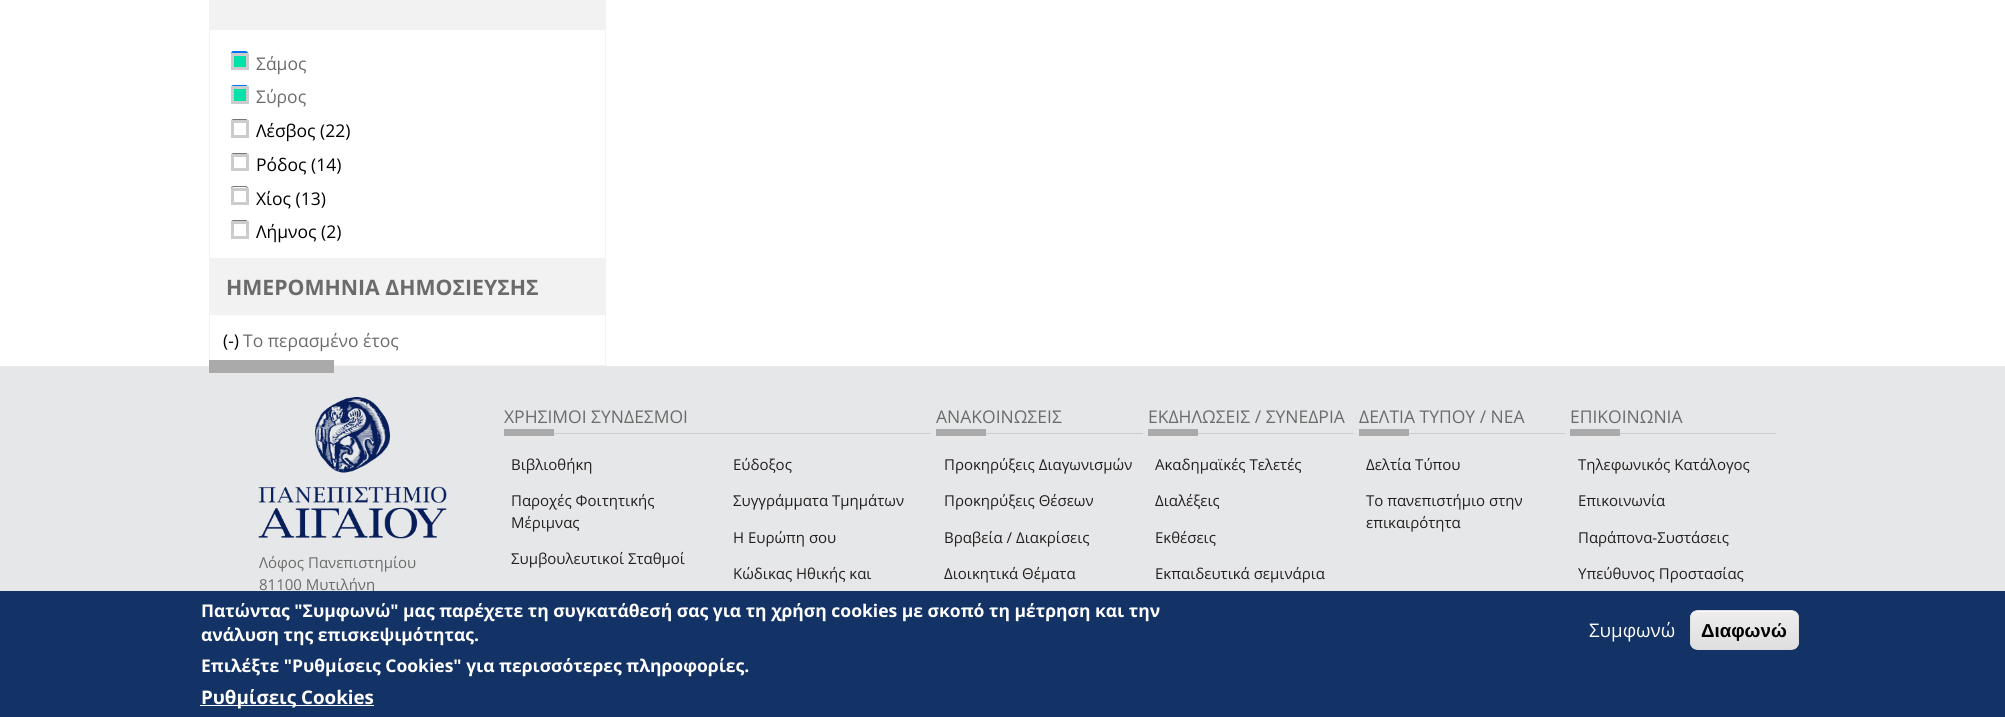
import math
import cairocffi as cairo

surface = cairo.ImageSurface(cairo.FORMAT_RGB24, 2005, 717)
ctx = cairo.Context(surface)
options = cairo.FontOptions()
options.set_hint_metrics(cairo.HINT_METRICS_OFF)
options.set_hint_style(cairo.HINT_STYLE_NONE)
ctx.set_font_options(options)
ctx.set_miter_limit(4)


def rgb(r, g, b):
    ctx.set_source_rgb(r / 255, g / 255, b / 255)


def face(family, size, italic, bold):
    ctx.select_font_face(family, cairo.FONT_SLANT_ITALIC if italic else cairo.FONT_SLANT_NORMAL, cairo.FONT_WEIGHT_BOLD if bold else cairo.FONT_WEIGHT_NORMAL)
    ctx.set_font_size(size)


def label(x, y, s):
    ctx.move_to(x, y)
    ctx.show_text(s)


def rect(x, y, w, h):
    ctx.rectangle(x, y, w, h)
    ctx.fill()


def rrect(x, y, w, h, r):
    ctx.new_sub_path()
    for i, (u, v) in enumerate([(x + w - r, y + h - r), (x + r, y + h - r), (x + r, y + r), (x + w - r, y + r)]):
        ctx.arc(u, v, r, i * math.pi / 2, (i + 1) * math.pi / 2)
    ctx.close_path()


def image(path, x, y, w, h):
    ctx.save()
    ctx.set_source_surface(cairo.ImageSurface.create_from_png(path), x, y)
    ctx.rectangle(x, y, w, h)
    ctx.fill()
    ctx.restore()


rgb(255, 255, 255)
ctx.paint()
ctx.rectangle(209.5, -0.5, 396, 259)
rgb(242, 242, 242)
ctx.set_line_width(1)
ctx.stroke()
rect(210, 0, 395, 30)
rgb(0, 117, 255)
rrect(231, 51, 17, 17, 2.5)
ctx.fill()
rgb(0, 226, 170)
ctx.rectangle(232.5, 54.5, 15, 14)
ctx.fill_preserve()
rgb(204, 204, 204)
ctx.set_line_width(3)
ctx.stroke()
face('Open Sans', 17.5, 0, 0)
rgb(107, 107, 107)
label(256, 70, 'Σάμος')
rgb(0, 117, 255)
rrect(231, 85, 17, 16, 2.5)
ctx.fill()
rgb(0, 226, 170)
ctx.rectangle(232.5, 87.5, 15, 15)
ctx.fill_preserve()
rgb(204, 204, 204)
ctx.stroke()
rgb(107, 107, 107)
label(256, 103, 'Σύρος')
rrect(231.5, 119.5, 16, 15, 2)
rgb(118, 118, 118)
ctx.set_line_width(1)
ctx.stroke()
rgb(255, 255, 255)
rect(234, 133, 12, 2)
ctx.rectangle(232.5, 121.5, 15, 15)
rgb(204, 204, 204)
ctx.set_line_width(3)
ctx.stroke()
rgb(0, 0, 0)
label(256, 137, 'Λέσβος (22)')
rrect(231.5, 153.5, 16, 15, 2)
rgb(118, 118, 118)
ctx.set_line_width(1)
ctx.stroke()
rgb(255, 255, 255)
rect(245, 167, 1, 1)
ctx.rectangle(232.5, 155.5, 15, 14)
rgb(204, 204, 204)
ctx.set_line_width(3)
ctx.stroke()
rgb(0, 0, 0)
label(256, 171, 'Ρόδος (14)')
rrect(231.5, 186.5, 16, 16, 2)
rgb(118, 118, 118)
ctx.set_line_width(1)
ctx.stroke()
rgb(255, 255, 255)
rect(245, 201, 1, 1)
ctx.rectangle(232.5, 189.5, 15, 14)
rgb(204, 204, 204)
ctx.set_line_width(3)
ctx.stroke()
rgb(0, 0, 0)
label(256, 205, 'Χίος (13)')
rrect(231.5, 220.5, 16, 15, 2)
rgb(118, 118, 118)
ctx.set_line_width(1)
ctx.stroke()
rgb(255, 255, 255)
rect(234, 234, 12, 2)
ctx.rectangle(232.5, 222.5, 15, 15)
rgb(204, 204, 204)
ctx.set_line_width(3)
ctx.stroke()
rgb(0, 0, 0)
label(256, 238, 'Λήμνος (2)')
ctx.rectangle(209.5, 259.5, 396, 106)
rgb(242, 242, 242)
ctx.set_line_width(1)
ctx.stroke()
rect(210, 260, 395, 55)
face('Open Sans', 21.25, 0, 1)
rgb(107, 107, 107)
label(226, 295, 'ΗΜΕΡΟΜΗΝΙΑ ΔΗΜΟΣΙΕΥΣΗΣ')
face('Open Sans', 17.5, 0, 0)
rgb(0, 0, 0)
label(223, 347, '(-)')
rgb(107, 107, 107)
label(243, 347, 'Το περασμένο έτος')
rgb(230, 231, 232)
rect(0, 366, 2005, 225)
rgb(170, 170, 170)
rect(209, 360, 125, 13)
image('image0.png', 258, 397, 189, 142)
face('Open Sans', 15, 0, 0)
rgb(107, 107, 107)
label(259, 568, 'Λόφος Πανεπιστημίου')
label(259, 590, '81100 Μυτιλήνη')
rgb(204, 204, 204)
rect(554, 433, 377, 1)
face('Open Sans', 17.5, 0, 0)
rgb(107, 107, 107)
label(504, 423, 'ΧΡΗΣΙΜΟΙ ΣΥΝΔΕΣΜΟΙ')
rgb(170, 170, 170)
rect(504, 429, 50, 7)
face('Open Sans', 15, 0, 0)
rgb(35, 31, 32)
label(511, 470, 'Βιβλιοθήκη')
label(733, 470, 'Εύδοξος')
label(511, 506, 'Παροχές Φοιτητικής')
label(511, 528, 'Μέριμνας')
label(733, 506, 'Συγγράμματα Τμημάτων')
label(733, 543, 'Η Ευρώπη σου')
label(511, 564, 'Συμβουλευτικοί Σταθμοί')
label(733, 579, 'Κώδικας Ηθικής και')
rgb(204, 204, 204)
rect(986, 433, 157, 1)
face('Open Sans', 17.5, 0, 0)
rgb(107, 107, 107)
label(936, 423, 'ΑΝΑΚΟΙΝΩΣΕΙΣ')
rgb(170, 170, 170)
rect(936, 429, 50, 7)
face('Open Sans', 15, 0, 0)
rgb(35, 31, 32)
label(944, 470, 'Προκηρύξεις Διαγωνισμών')
label(944, 506, 'Προκηρύξεις Θέσεων')
label(944, 543, 'Βραβεία / Διακρίσεις')
label(944, 579, 'Διοικητικά Θέματα')
rgb(204, 204, 204)
rect(1198, 433, 156, 1)
face('Open Sans', 17.5, 0, 0)
rgb(107, 107, 107)
label(1148, 423, 'ΕΚΔΗΛΩΣΕΙΣ / ΣΥΝΕΔΡΙΑ')
rgb(170, 170, 170)
rect(1148, 429, 50, 7)
face('Open Sans', 15, 0, 0)
rgb(35, 31, 32)
label(1155, 470, 'Ακαδημαϊκές Τελετές')
label(1155, 506, 'Διαλέξεις')
label(1155, 543, 'Εκθέσεις')
label(1155, 579, 'Εκπαιδευτικά σεμινάρια')
rgb(204, 204, 204)
rect(1409, 433, 156, 1)
face('Open Sans', 17.5, 0, 0)
rgb(107, 107, 107)
label(1359, 423, 'ΔΕΛΤΙΑ ΤΥΠΟΥ / ΝΕΑ')
rgb(170, 170, 170)
rect(1359, 429, 50, 7)
face('Open Sans', 15, 0, 0)
rgb(35, 31, 32)
label(1366, 470, 'Δελτία Τύπου')
label(1366, 506, 'Το πανεπιστήμιο στην')
label(1366, 528, 'επικαιρότητα')
rgb(204, 204, 204)
rect(1620, 433, 156, 1)
face('Open Sans', 17.5, 0, 0)
rgb(107, 107, 107)
label(1570, 423, 'ΕΠΙΚΟΙΝΩΝΙΑ')
rgb(170, 170, 170)
rect(1570, 429, 50, 7)
face('Open Sans', 15, 0, 0)
rgb(35, 31, 32)
label(1578, 470, 'Τηλεφωνικός Κατάλογος')
label(1578, 506, 'Επικοινωνία')
label(1578, 543, 'Παράπονα-Συστάσεις')
label(1578, 579, 'Υπεύθυνος Προστασίας')
rgb(19, 50, 102)
rect(0, 591, 2005, 126)
face('Open Sans', 17.5, 0, 1)
rgb(255, 255, 255)
label(201, 617, 'Πατώντας "Συμφωνώ" μας παρέχετε τη συγκατάθεσή σας για τη χρήση cookies με σκοπό τη μέτρηση και την')
label(201, 641, 'ανάλυση της επισκεψιμότητας.')
label(201, 672, 'Επιλέξτε "Ρυθμίσεις Cookies" για περισσότερες πληροφορίες.')
rect(200, 705, 174, 1)
face('Open Sans', 18.75, 0, 1)
label(201, 704, 'Ρυθμίσεις Cookies')
face('Open Sans', 18.75, 0, 0)
label(1589, 637, 'Συμφωνώ')
ctx.save()
rrect(1690, 610, 109, 40, 8)
ctx.clip()
gradient = cairo.LinearGradient(1744, 611, 1744, 649)
gradient.add_color_stop_rgba(0.05, 0.929, 0.929, 0.929, 1)
gradient.add_color_stop_rgba(1, 0.875, 0.875, 0.875, 1)
ctx.set_source(gradient)
rect(1690, 611, 109, 38)
ctx.restore()
ctx.new_path()
ctx.move_to(1698, 612)
ctx.line_to(1791, 612)
ctx.curve_to(1795, 612, 1798, 615, 1798, 619)
ctx.curve_to(1798, 607, 1785, 611, 1776, 611)
ctx.line_to(1713, 611)
ctx.curve_to(1704, 611, 1691, 607, 1691, 619)
ctx.curve_to(1691, 615, 1694, 612, 1698, 612)
ctx.close_path()
ctx.fill()
rrect(1690.5, 610.5, 108, 39, 7.5)
rgb(220, 220, 220)
ctx.stroke()
face('Liberation Sans', 18.75, 0, 1)
rgb(0, 0, 0)
label(1701, 637, 'Διαφωνώ')
surface.write_to_png('render.png')
